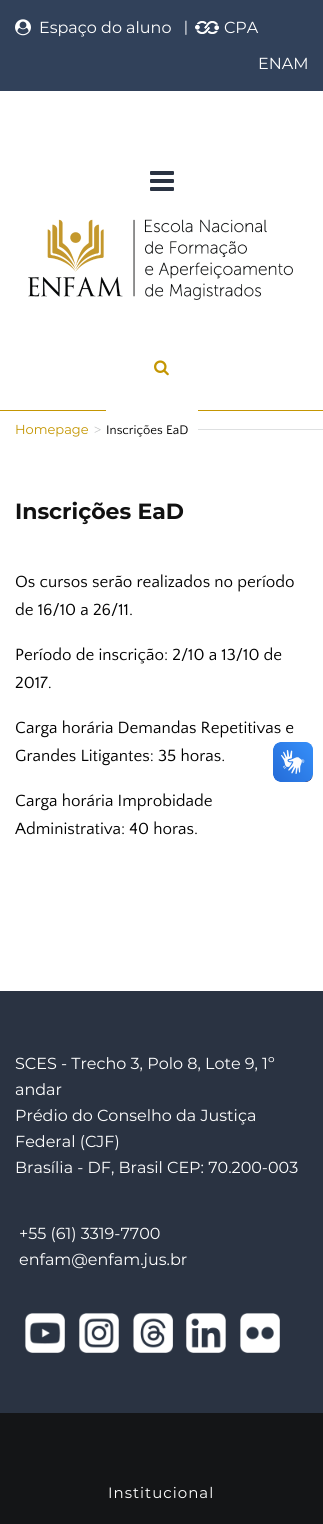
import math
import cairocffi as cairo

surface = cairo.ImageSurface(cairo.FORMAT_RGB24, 323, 1524)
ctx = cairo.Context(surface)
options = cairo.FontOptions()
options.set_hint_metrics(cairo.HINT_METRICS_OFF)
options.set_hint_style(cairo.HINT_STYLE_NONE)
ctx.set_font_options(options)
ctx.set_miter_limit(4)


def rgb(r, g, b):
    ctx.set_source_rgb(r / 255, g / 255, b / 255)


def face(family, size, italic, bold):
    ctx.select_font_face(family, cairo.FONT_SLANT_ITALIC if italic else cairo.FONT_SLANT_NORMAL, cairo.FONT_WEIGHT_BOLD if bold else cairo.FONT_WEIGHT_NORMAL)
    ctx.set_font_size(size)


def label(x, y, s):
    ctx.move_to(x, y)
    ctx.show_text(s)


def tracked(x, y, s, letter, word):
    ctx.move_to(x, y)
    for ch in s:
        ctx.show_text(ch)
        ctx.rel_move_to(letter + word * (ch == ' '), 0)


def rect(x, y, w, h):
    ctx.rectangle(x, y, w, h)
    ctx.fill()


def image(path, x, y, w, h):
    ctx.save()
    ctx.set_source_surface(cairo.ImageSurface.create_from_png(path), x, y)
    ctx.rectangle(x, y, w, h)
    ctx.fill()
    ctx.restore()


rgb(196, 150, 2)
ctx.paint()
rgb(49, 65, 90)
rect(0, 0, 323, 91)
image('image0.png', 15, 19, 16, 17)
face('Montserrat', 16, 0, 0)
rgb(255, 255, 255)
label(39, 33, 'Espaço do aluno')
face('Quattrocento Sans', 16, 0, 0)
label(184, 33, '|')
image('image1.png', 195, 21, 24, 13)
face('Montserrat', 16, 0, 0)
label(224, 33, 'CPA')
label(258, 69, 'ENAM')
rect(0, 91, 323, 319)
image('image2.png', 150, 171, 24, 20)
image('image3.png', 28, 219, 265, 81)
image('image4.png', 154, 360, 15, 16)
rect(0, 411, 323, 580)
face('Montserrat', 13, 0, 0)
rgb(196, 150, 2)
label(15, 434, 'Homepage')
face('Liberation Serif', 13, 0, 0)
rgb(182, 184, 185)
label(94, 434, '>')
rgb(255, 255, 255)
rect(106, 410, 92, 1)
face('Quattrocento Sans', 13, 0, 0)
rgb(0, 0, 0)
label(106, 434, 'Inscrições EaD')
rgb(222, 224, 225)
rect(198, 429, 125, 1)
face('Montserrat', 22, 0, 1)
rgb(17, 17, 17)
label(15, 519, 'Inscrições EaD')
face('Quattrocento Sans', 17, 0, 0)
rgb(0, 0, 0)
label(15, 587, 'Os cursos serão realizados no período')
label(15, 615, 'de 16/10 a 26/11.')
label(15, 660, 'Período de inscrição: 2/10 a 13/10 de')
label(15, 688, '2017.')
label(15, 733, 'Carga horária Demandas Repetitivas e')
label(15, 761, 'Grandes Litigantes: 35 horas.')
label(15, 806, 'Carga horária Improbidade')
label(15, 834, 'Administrativa: 40 horas.')
rgb(42, 51, 66)
rect(0, 991, 323, 422)
face('Montserrat', 16, 0, 0)
rgb(255, 255, 255)
label(15, 1069, 'SCES - Trecho 3, Polo 8, Lote 9, 1º')
label(15, 1095, 'andar')
label(15, 1121, 'Prédio do Conselho da Justiça')
label(15, 1147, 'Federal (CJF)')
label(15, 1173, 'Brasília - DF, Brasil CEP: 70.200-003')
label(19, 1239, '+55 (61) 3319-7700')
label(19, 1265, 'enfam@enfam.jus.br')
image('image5.png', 25, 1313, 40, 40)
image('image6.png', 79, 1313, 40, 40)
image('image7.png', 133, 1313, 40, 40)
image('image8.png', 186, 1313, 40, 40)
image('image9.png', 240, 1313, 40, 40)
rgb(20, 21, 23)
rect(0, 1413, 323, 111)
face('Montserrat', 15, 0, 0)
rgb(255, 255, 255)
tracked(108, 1498, 'Institucional', 1, 0)
image('image10.png', 273, 742, 40, 40)
image('image11.png', 273, 742, 40, 40)
surface.write_to_png('render.png')
